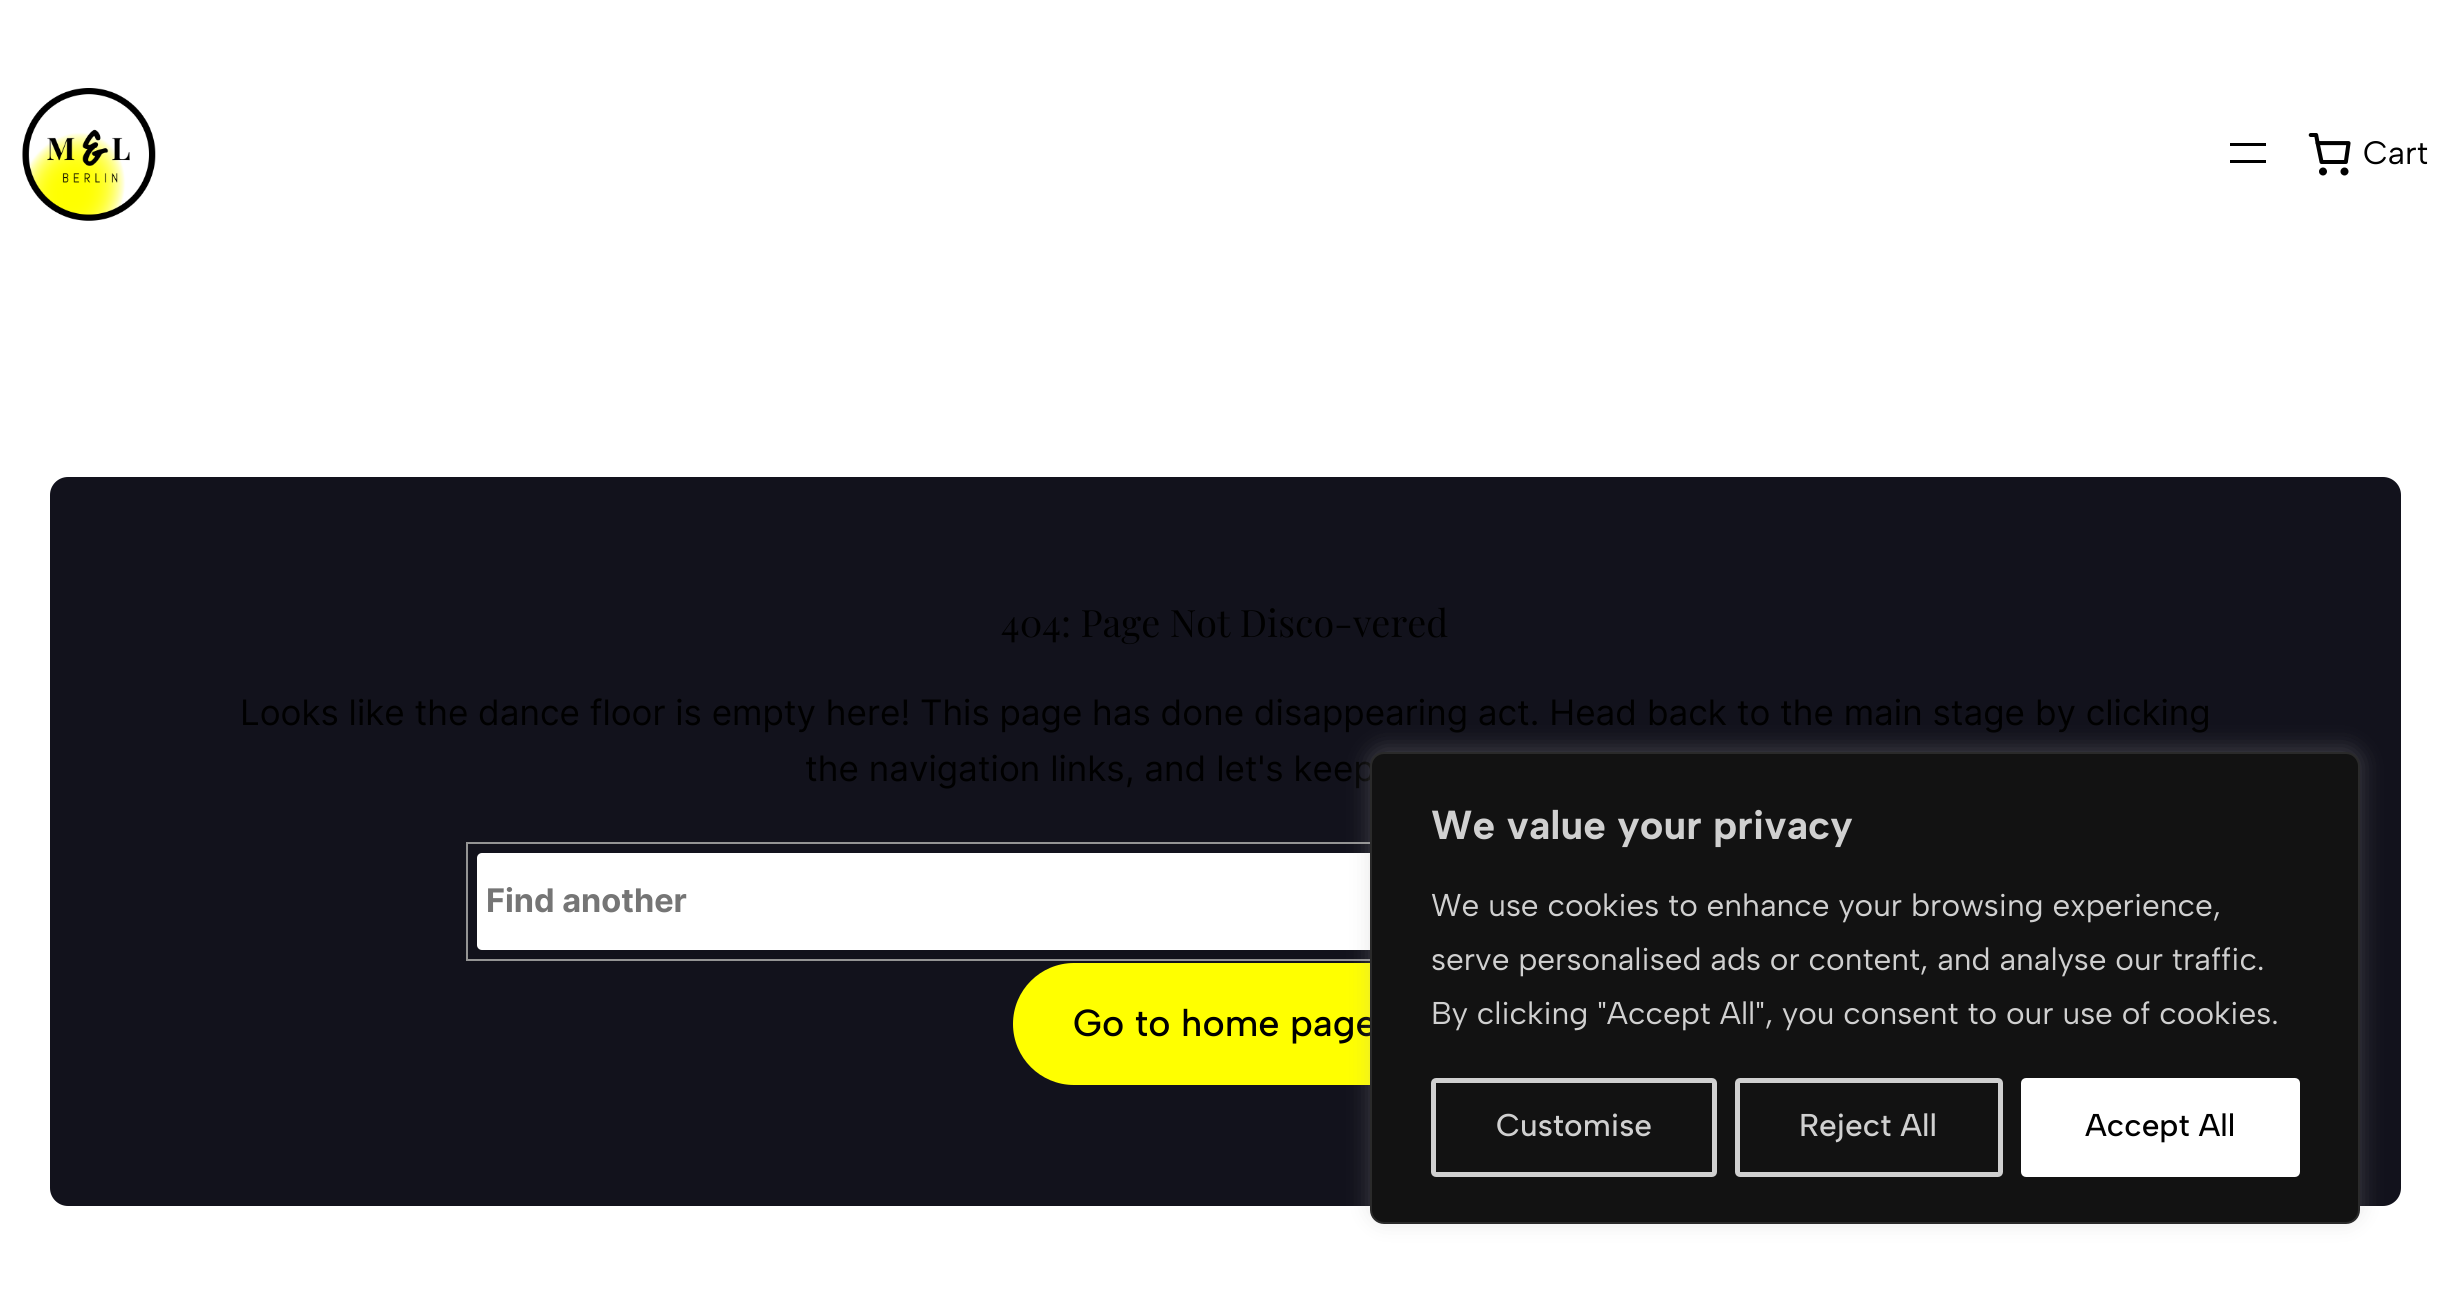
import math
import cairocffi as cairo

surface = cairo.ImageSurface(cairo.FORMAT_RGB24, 2449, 1312)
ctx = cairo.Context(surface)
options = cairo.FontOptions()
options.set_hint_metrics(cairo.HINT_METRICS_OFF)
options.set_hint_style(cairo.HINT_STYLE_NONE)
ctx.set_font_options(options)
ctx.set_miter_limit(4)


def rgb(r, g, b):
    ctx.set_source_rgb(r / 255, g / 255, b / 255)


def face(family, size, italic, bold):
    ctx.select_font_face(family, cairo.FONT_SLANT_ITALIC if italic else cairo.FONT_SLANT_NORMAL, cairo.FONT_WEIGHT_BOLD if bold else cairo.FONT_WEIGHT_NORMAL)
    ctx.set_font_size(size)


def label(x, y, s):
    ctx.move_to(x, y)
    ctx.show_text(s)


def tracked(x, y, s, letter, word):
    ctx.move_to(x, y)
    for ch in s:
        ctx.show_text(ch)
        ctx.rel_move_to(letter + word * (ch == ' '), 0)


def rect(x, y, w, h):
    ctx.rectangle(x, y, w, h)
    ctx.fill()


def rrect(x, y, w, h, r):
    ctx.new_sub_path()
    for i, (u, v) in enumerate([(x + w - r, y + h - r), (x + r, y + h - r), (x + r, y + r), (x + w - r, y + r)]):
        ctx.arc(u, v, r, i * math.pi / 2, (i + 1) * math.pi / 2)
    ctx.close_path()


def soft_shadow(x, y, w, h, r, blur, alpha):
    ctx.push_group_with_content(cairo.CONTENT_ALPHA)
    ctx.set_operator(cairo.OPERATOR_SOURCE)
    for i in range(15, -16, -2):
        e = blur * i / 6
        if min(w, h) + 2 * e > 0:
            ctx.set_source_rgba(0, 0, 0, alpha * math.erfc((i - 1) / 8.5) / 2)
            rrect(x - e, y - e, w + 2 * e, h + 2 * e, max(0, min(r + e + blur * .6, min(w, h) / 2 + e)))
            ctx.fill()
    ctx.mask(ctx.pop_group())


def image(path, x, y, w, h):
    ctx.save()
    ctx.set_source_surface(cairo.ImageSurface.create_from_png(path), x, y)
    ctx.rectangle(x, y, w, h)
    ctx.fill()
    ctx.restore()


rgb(255, 255, 255)
ctx.paint()
image('image0.png', 22, 88, 134, 133)
rgb(0, 0, 0)
rect(2230, 143, 36, 3)
rect(2230, 160, 36, 3)
image('image1.png', 2308, 133, 43, 43)
face('Albert Sans', 32.5, 0, 0)
label(2363, 164, 'Cart')
rgb(18, 18, 28)
rrect(50, 477, 2351, 729, 18)
ctx.fill()
face('Playfair Display', 37.75, 0, 0)
rgb(0, 0, 0)
label(1001, 637, '404: Page Not Disco-vered')
face('Inter', 35.03, 0, 0)
tracked(240, 725, 'Looks like the dance floor is empty here! This page has done disappearing act. Head back to the main stage by clicking', 0, -0.1)
label(805, 781, 'the navigation links, and let\'s keep')
ctx.rectangle(467, 843, 1517, 117)
rgb(148, 148, 148)
ctx.stroke()
rgb(255, 255, 255)
rrect(477, 853, 1301, 97, 5)
ctx.fill()
face('Inter', 32.5, 0, 1)
rgb(117, 117, 117)
label(486, 912, 'Find another')
rgb(255, 255, 0)
rrect(1013, 963, 425, 122, 61)
ctx.fill()
face('Albert Sans Medium', 37.75, 0, 0)
rgb(0, 0, 0)
label(1073, 1036, 'Go to home page')
rgb(172, 171, 171)
soft_shadow(1370, 749, 990, 473, 14, 11, 0.3)
rgb(18, 18, 18)
rrect(1371, 753, 988, 470, 13)
ctx.fill_preserve()
rgb(42, 42, 42)
ctx.stroke()
face('Albert Sans', 40.5, 0, 1)
rgb(208, 208, 208)
label(1431, 839, 'We value your privacy')
face('Albert Sans', 31.5, 0, 0)
label(1431, 916, 'We use cookies to enhance your browsing experience,')
label(1431, 970, 'serve personalised ads or content, and analyse our traffic.')
label(1431, 1024, 'By clicking "Accept All", you consent to our use of cookies.')
rrect(1433.5, 1080.5, 281, 94, 2.5)
ctx.set_line_width(5)
ctx.stroke()
face('Albert Sans Medium', 31.5, 0, 0)
label(1496, 1136, 'Customise')
rrect(1737.5, 1080.5, 263, 94, 2.5)
ctx.stroke()
label(1799, 1136, 'Reject All')
rgb(255, 255, 255)
rrect(2023.5, 1080.5, 274, 94, 2.5)
ctx.fill_preserve()
ctx.stroke()
rgb(0, 0, 0)
label(2085, 1136, 'Accept All')
surface.write_to_png('render.png')
